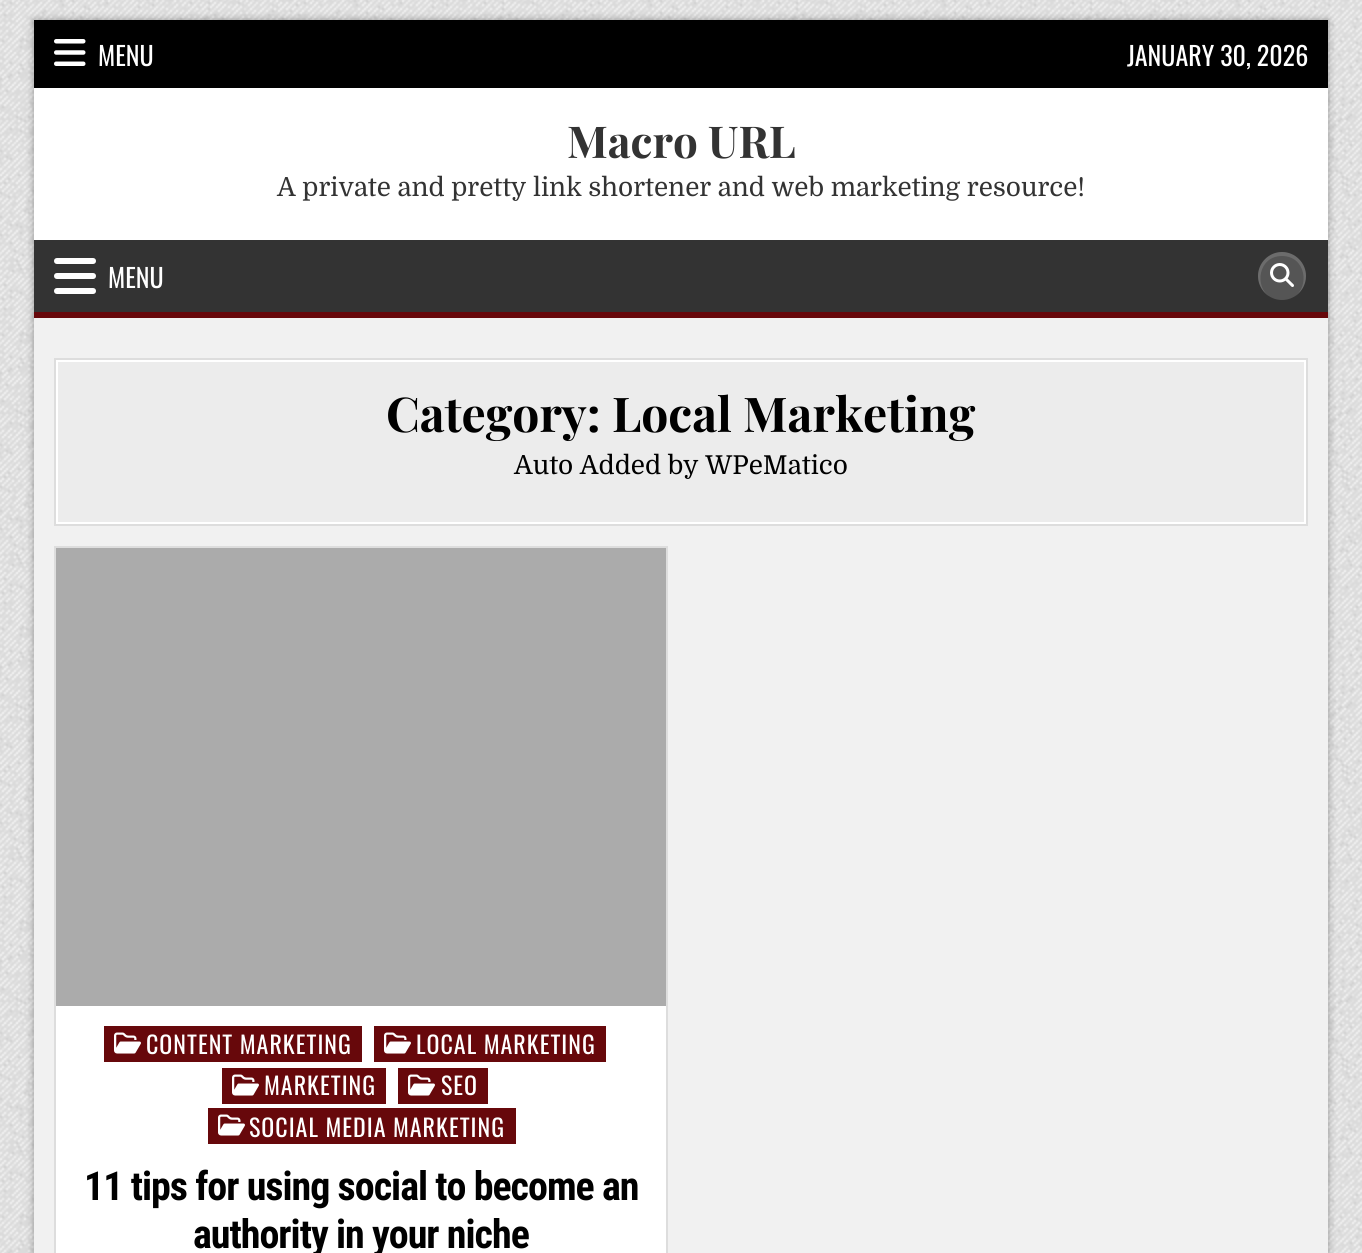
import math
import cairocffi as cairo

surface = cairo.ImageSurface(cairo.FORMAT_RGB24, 1362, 1253)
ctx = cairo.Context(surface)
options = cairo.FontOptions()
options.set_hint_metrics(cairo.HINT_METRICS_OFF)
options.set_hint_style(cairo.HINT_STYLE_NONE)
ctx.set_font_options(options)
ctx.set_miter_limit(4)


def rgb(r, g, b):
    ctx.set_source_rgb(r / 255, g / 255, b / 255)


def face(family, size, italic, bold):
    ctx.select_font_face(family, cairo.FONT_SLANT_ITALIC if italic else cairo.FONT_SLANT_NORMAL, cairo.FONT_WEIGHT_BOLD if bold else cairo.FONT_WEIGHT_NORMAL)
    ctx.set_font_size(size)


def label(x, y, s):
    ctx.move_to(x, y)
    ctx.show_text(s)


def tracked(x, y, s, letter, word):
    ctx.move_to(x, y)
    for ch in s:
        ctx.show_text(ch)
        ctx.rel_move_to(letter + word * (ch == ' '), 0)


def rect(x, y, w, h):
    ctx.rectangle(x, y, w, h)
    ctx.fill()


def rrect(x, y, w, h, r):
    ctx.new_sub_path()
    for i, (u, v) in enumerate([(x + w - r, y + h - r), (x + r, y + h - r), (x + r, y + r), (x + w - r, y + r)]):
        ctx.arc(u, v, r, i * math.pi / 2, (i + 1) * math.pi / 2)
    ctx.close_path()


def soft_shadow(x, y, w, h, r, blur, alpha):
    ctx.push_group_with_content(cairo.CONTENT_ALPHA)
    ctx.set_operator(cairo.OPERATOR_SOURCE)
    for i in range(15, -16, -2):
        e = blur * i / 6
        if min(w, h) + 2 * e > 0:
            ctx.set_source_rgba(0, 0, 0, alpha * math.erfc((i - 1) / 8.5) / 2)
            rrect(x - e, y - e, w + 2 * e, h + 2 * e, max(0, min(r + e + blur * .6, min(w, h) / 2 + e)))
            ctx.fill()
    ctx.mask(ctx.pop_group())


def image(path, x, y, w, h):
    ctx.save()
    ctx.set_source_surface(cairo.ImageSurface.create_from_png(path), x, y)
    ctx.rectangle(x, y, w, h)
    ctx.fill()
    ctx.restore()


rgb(255, 255, 255)
ctx.paint()
image('image0.png', 0, 0, 1362, 1253)
rgb(0, 0, 0)
soft_shadow(34, 20, 1294, 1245, 0, 4, 0.35)
rgb(0, 0, 0)
rect(34, 20, 1294, 68)
image('image1.png', 54, 39, 32, 27)
face('Oswald', 26, 0, 0)
rgb(255, 255, 255)
label(98, 66, 'MENU')
label(1127, 66, 'JANUARY 30, 2026')
rect(34, 88, 1294, 152)
face('Playfair Display', 44, 0, 1)
rgb(51, 51, 51)
label(567, 158, 'Macro URL')
face('Domine', 26, 0, 0)
label(277, 196, 'A private and pretty link shortener and web marketing resource!')
rect(34, 240, 1294, 72)
rgb(103, 8, 11)
rect(34, 312, 1294, 6)
image('image2.png', 54, 258, 42, 36)
face('Oswald', 26, 0, 0)
rgb(255, 255, 255)
label(108, 288, 'MENU')
rgb(85, 85, 85)
ctx.new_path()
ctx.arc(1282, 276, 24, 0, 2 * math.pi)
ctx.fill()
ctx.set_source_rgba(1, 1, 1, 0.14)
ctx.new_path()
ctx.move_to(1282, 256)
ctx.curve_to(1306, 256, 1310, 287, 1294, 297)
ctx.curve_to(1301, 293, 1306, 285, 1306, 276)
ctx.curve_to(1306, 263, 1295, 252, 1282, 252)
ctx.curve_to(1269, 252, 1258, 263, 1258, 276)
ctx.curve_to(1258, 285, 1263, 293, 1270, 297)
ctx.curve_to(1254, 287, 1258, 256, 1282, 256)
ctx.close_path()
ctx.fill()
image('image3.png', 1270, 263, 24, 24)
rgb(241, 241, 241)
rect(34, 318, 1294, 935)
rgb(236, 236, 236)
rect(58, 362, 1246, 160)
ctx.rectangle(55, 359, 1252, 166)
rgb(221, 221, 221)
ctx.stroke()
ctx.rectangle(57, 361, 1248, 162)
rgb(255, 255, 255)
ctx.stroke()
face('Playfair Display', 48, 0, 1)
rgb(0, 0, 0)
label(386, 432, 'Category: Local Marketing')
face('Domine', 26, 0, 0)
label(514, 474, 'Auto Added by WPeMatico')
rgb(255, 255, 255)
rect(56, 1006, 610, 247)
ctx.rectangle(55, 547, 612, 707)
rgb(221, 221, 221)
ctx.stroke()
rgb(171, 171, 171)
rect(56, 548, 610, 458)
rgb(103, 8, 11)
rect(104, 1026, 258, 36)
image('image4.png', 114, 1032, 27, 22)
face('Oswald', 24, 0, 0)
rgb(255, 255, 255)
tracked(146, 1054, 'CONTENT MARKETING', 1, 0)
rgb(103, 8, 11)
rect(374, 1026, 232, 36)
image('image4.png', 384, 1032, 27, 22)
rgb(255, 255, 255)
tracked(416, 1054, 'LOCAL MARKETING', 1, 0)
rgb(103, 8, 11)
rect(222, 1068, 164, 36)
image('image4.png', 232, 1074, 27, 22)
rgb(255, 255, 255)
tracked(264, 1095, 'MARKETING', 1, 0)
rgb(103, 8, 11)
rect(398, 1068, 90, 36)
image('image4.png', 408, 1074, 27, 22)
rgb(255, 255, 255)
tracked(441, 1095, 'SEO', 1, 0)
rgb(103, 8, 11)
rect(208, 1108, 308, 36)
image('image4.png', 218, 1114, 27, 22)
rgb(255, 255, 255)
tracked(249, 1137, 'SOCIAL MEDIA MARKETING', 1, 0)
face('Roboto Condensed', 40, 0, 1)
rgb(0, 0, 0)
tracked(84, 1200, '11 tips for using social to become an', -1, 0)
tracked(193, 1248, 'authority in your niche', -1, 0)
surface.write_to_png('render.png')
